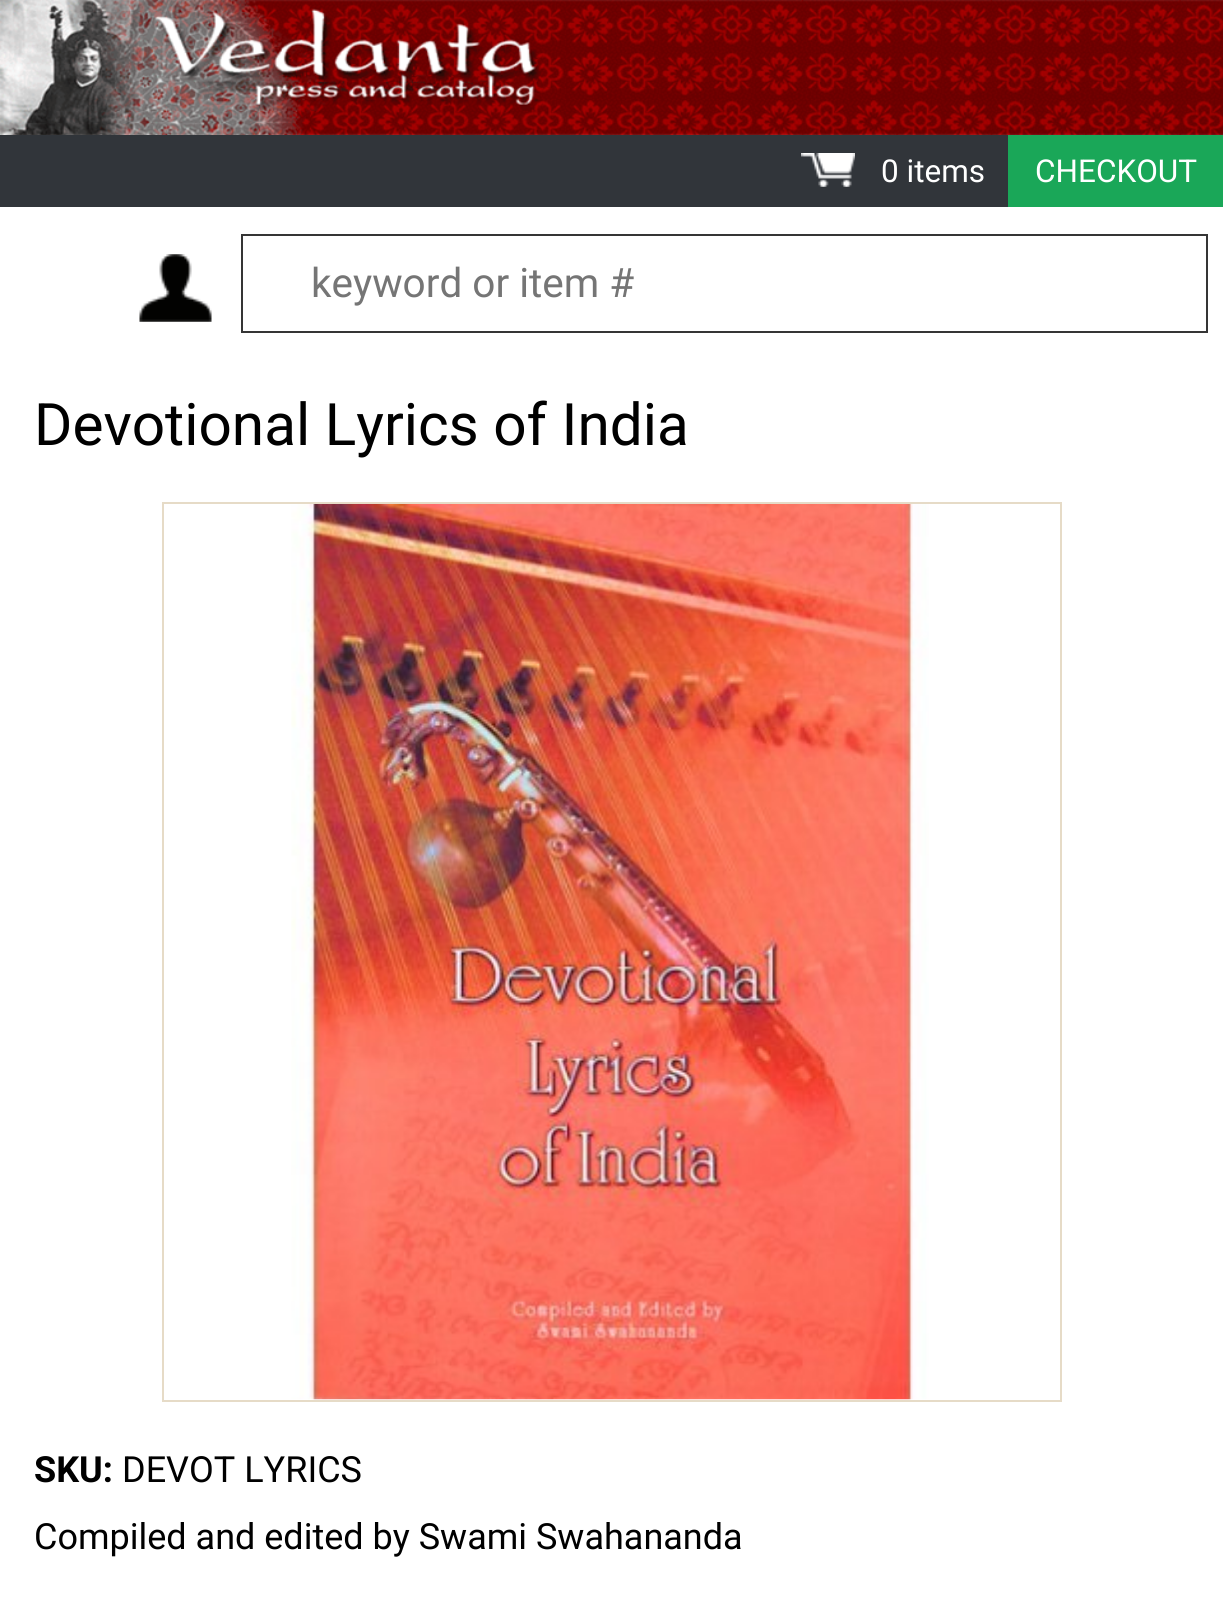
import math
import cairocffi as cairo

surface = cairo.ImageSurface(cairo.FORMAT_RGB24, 1223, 1599)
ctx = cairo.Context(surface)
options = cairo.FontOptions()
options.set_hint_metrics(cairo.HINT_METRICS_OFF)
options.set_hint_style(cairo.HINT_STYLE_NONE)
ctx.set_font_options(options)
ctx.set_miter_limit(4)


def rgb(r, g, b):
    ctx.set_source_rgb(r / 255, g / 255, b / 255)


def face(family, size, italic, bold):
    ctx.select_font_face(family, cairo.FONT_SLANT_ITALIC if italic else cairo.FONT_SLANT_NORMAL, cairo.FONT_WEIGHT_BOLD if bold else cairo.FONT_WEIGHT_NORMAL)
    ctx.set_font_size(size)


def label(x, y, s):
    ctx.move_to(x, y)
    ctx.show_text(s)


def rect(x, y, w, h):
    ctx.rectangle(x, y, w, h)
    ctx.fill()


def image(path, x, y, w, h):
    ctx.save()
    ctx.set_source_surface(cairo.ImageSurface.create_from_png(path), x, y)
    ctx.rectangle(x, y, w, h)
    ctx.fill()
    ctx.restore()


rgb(255, 255, 255)
ctx.paint()
rgb(49, 53, 58)
rect(0, 135, 1008, 72)
image('image0.png', 0, 0, 1223, 135)
image('image1.png', 801, 153, 54, 34)
face('Roboto', 31.5, 0, 0)
rgb(255, 255, 255)
label(881, 182, '0 items')
rgb(26, 167, 88)
rect(1008, 135, 215, 72)
rgb(255, 255, 255)
label(1035, 182, 'CHECKOUT')
image('image2.png', 139, 254, 73, 68)
ctx.rectangle(242, 235, 965, 97)
rgb(53, 53, 53)
ctx.stroke()
face('Roboto', 40.5, 0, 0)
rgb(117, 117, 117)
label(311, 297, 'keyword or item #')
face('Roboto', 58.5, 0, 0)
rgb(0, 0, 0)
label(34, 445, 'Devotional Lyrics of India')
ctx.rectangle(163, 503, 898, 898)
rgb(230, 219, 199)
ctx.stroke()
image('image3.png', 291, 504, 638, 896)
face('Roboto', 36, 0, 1)
rgb(0, 0, 0)
label(34, 1482, 'SKU:')
face('Roboto', 36, 0, 0)
label(122, 1482, 'DEVOT LYRICS')
label(34, 1549, 'Compiled and edited by Swami Swahananda')
surface.write_to_png('render.png')
